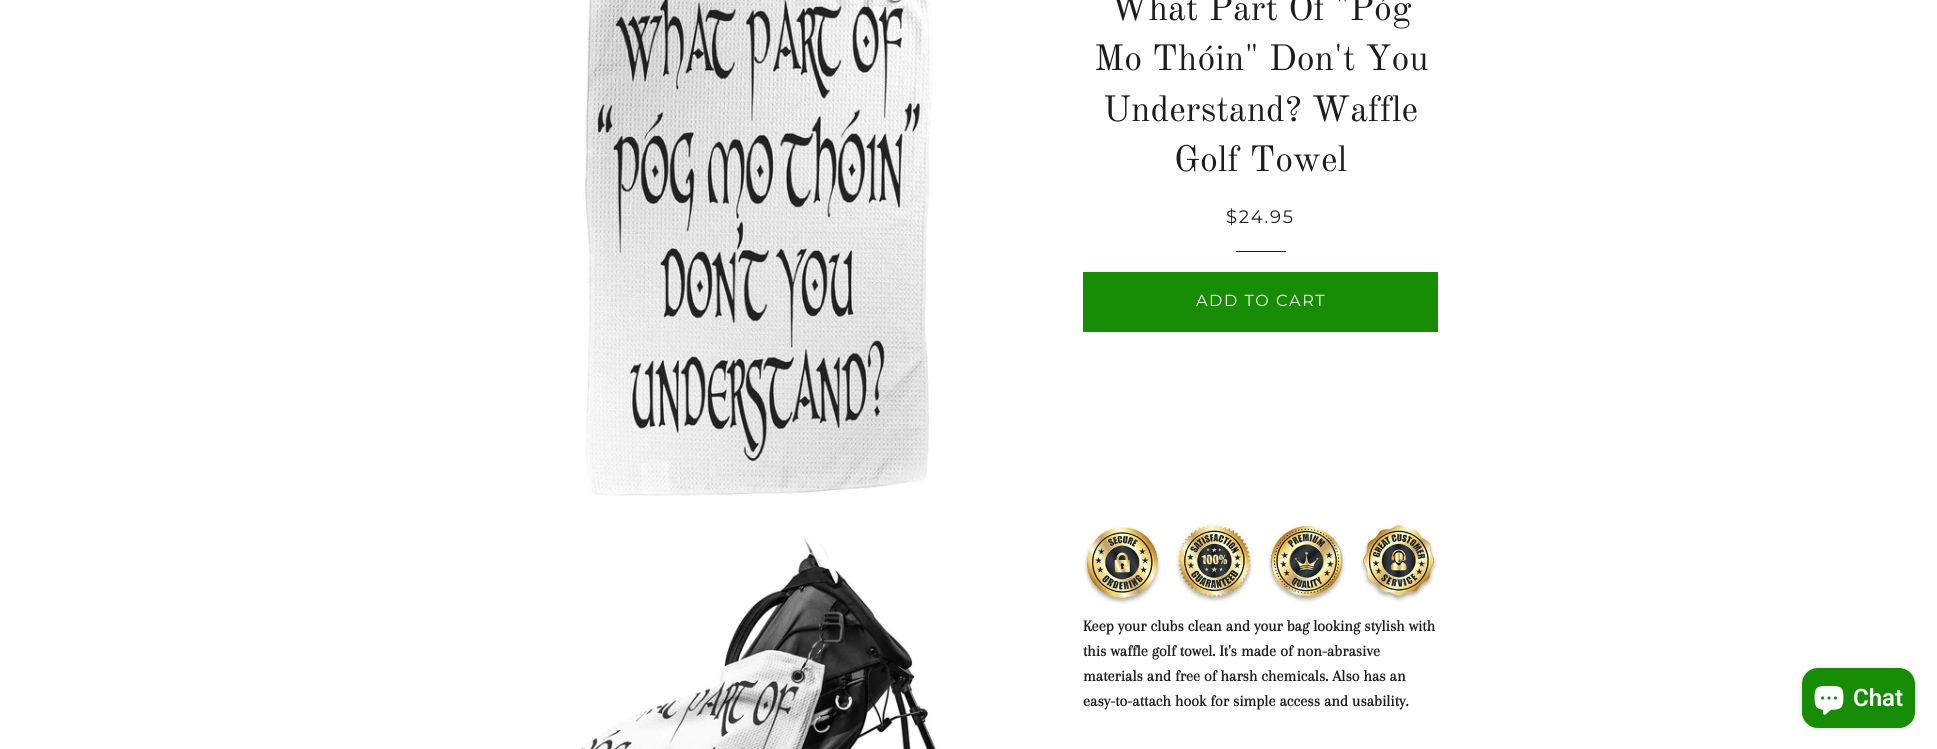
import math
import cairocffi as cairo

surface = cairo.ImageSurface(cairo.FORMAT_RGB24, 1937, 749)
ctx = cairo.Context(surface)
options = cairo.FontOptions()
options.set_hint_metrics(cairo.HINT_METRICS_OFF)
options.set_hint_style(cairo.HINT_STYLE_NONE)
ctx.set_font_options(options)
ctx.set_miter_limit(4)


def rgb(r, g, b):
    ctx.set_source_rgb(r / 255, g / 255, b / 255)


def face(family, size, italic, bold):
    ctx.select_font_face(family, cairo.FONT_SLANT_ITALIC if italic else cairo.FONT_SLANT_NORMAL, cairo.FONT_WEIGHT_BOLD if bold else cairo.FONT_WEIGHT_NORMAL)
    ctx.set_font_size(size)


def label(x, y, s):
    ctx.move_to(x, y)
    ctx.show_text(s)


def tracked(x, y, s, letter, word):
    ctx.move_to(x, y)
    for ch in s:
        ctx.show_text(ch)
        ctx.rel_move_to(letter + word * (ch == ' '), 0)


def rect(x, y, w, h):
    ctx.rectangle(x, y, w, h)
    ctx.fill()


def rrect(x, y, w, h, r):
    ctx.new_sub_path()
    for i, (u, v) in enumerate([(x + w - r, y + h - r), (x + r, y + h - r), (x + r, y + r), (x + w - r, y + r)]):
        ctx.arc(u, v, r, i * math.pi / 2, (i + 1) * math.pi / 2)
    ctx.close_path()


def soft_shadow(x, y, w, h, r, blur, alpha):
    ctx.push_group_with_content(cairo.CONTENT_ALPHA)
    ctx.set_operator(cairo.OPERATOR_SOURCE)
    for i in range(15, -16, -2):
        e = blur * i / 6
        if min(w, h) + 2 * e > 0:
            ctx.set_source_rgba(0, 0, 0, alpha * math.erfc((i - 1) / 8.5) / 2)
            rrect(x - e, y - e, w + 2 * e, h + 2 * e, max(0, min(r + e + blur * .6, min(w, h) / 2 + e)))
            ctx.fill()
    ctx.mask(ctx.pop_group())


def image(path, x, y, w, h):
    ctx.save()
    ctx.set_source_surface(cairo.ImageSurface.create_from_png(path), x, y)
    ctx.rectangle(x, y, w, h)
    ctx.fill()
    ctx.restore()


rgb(255, 255, 255)
ctx.paint()
image('image0.png', 474, 0, 564, 506)
image('image1.png', 474, 521, 564, 228)
face('Old Standard TT', 36, 0, 0)
rgb(28, 30, 28)
label(1110, 20, 'What Part Of "Póg')
label(1094, 70, 'Mo Thóin" Don\'t You')
label(1103, 121, 'Understand? Waffle')
label(1174, 171, 'Golf Towel')
face('Montserrat Thin', 18, 0, 0)
tracked(1226, 223, '$24.95', 1.75, 0)
rgb(28, 29, 29)
rect(1236, 251, 50, 1)
rgb(22, 141, 4)
rect(1083, 272, 355, 60)
face('Montserrat Thin', 16, 0, 0)
rgb(255, 255, 255)
tracked(1196, 306, 'ADD TO CART', 1.6, 0)
image('image2.png', 1083, 524, 355, 80)
face('Arapey', 16, 0, 1)
rgb(28, 30, 28)
label(1083, 631, 'Keep your clubs clean and your bag looking stylish with')
label(1083, 656, 'this waffle golf towel. It\'s made of non-abrasive')
label(1083, 681, 'materials and free of harsh chemicals. Also has an')
label(1083, 706, 'easy-to-attach hook for simple access and usability.')
rgb(0, 0, 0)
soft_shadow(1802, 668, 113, 60, 16, 2.5, 0.15)
rgb(22, 141, 4)
rrect(1802, 668, 113, 60, 16)
ctx.fill()
image('image3.png', 1814, 686, 30, 29)
face('Roboto SemiBold', 24, 0, 0)
rgb(255, 255, 255)
label(1853, 706, 'Chat')
surface.write_to_png('render.png')
